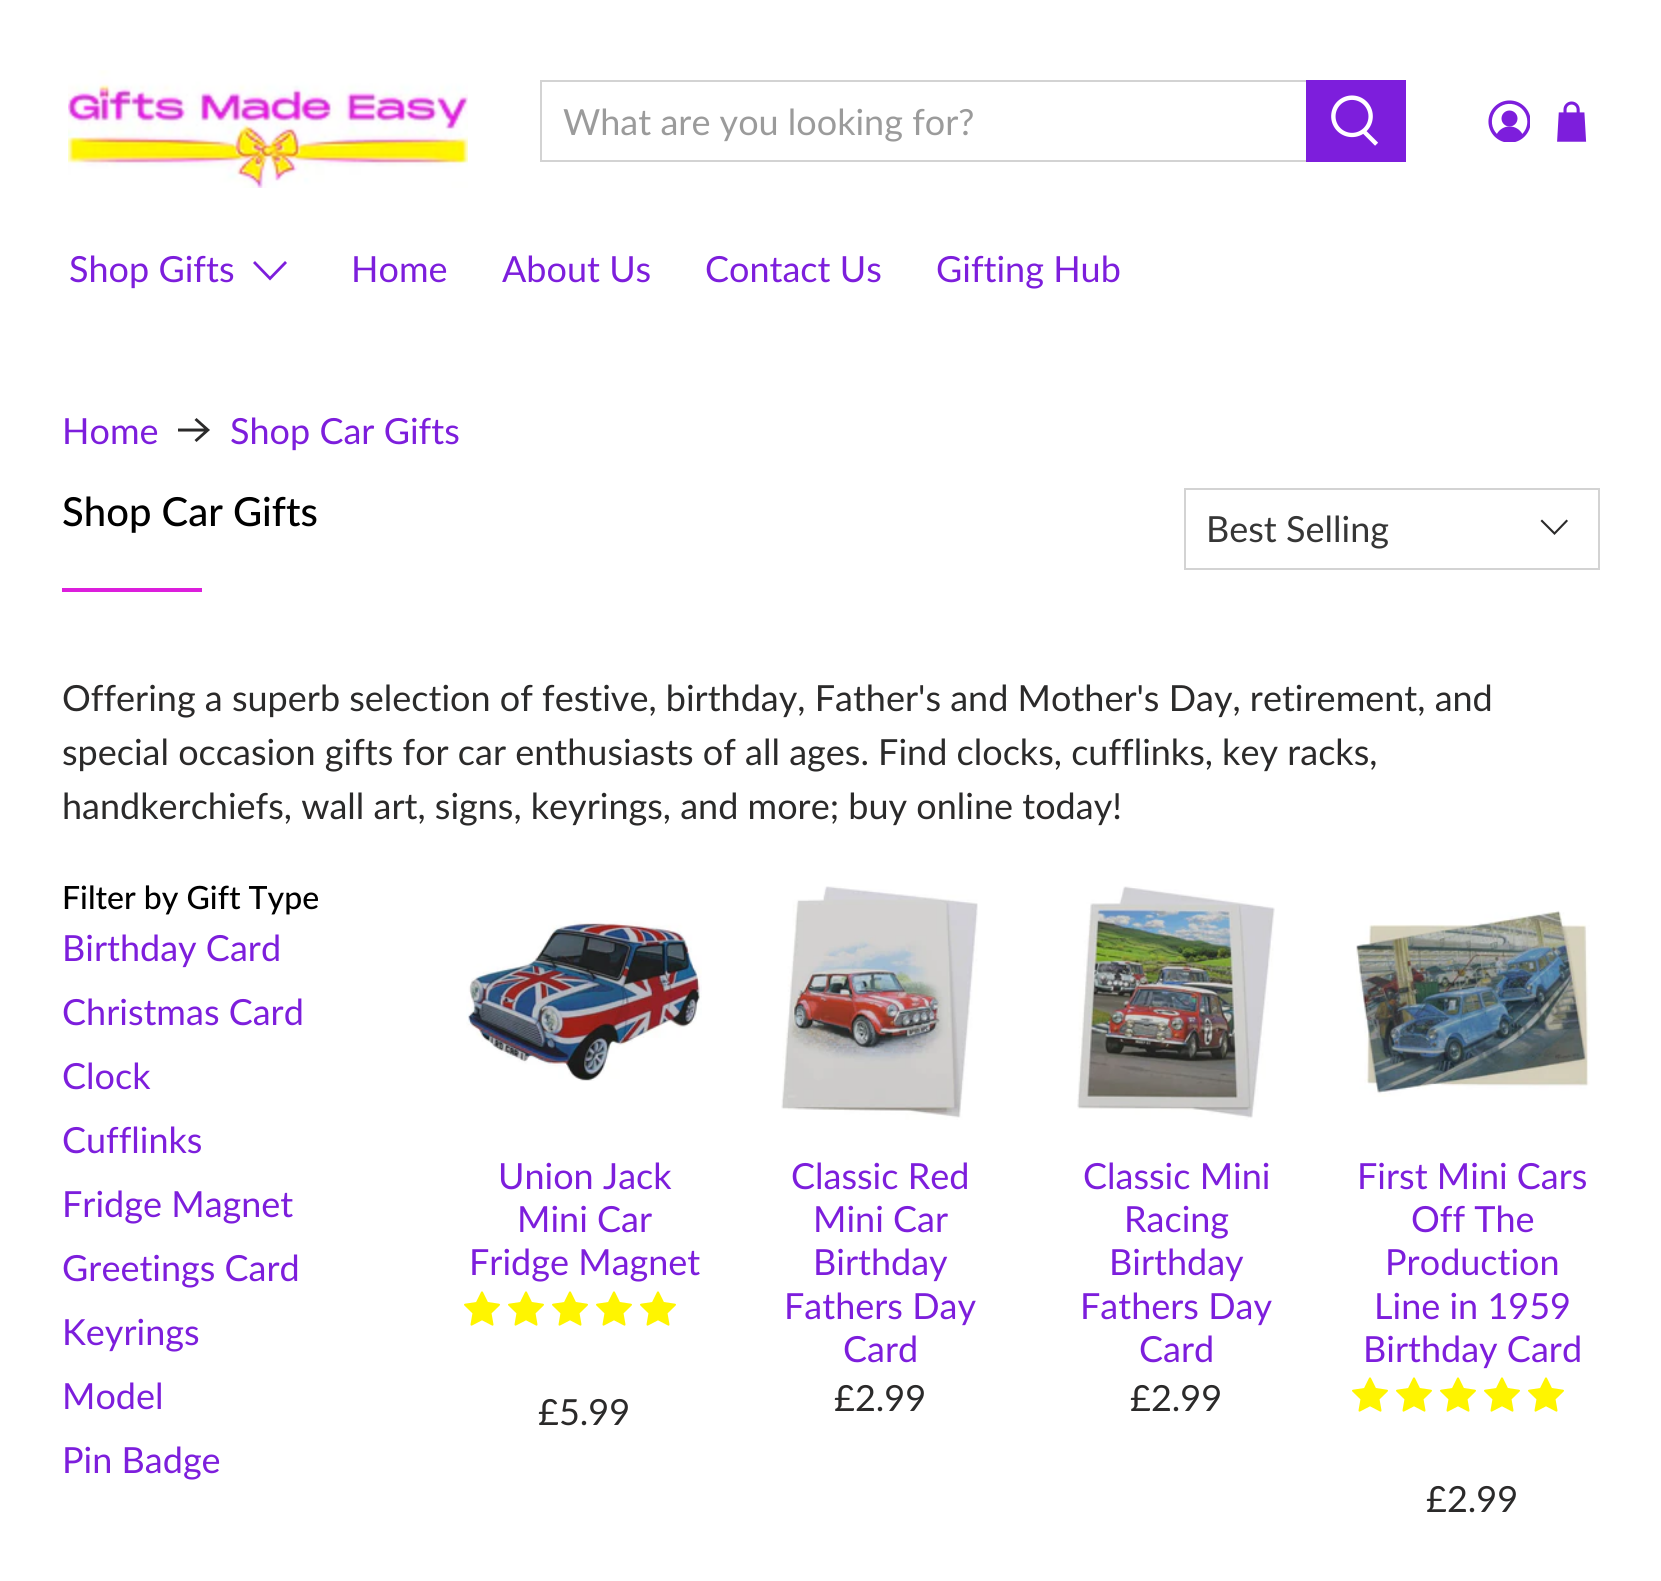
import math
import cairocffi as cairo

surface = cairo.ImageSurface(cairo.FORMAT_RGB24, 1661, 1581)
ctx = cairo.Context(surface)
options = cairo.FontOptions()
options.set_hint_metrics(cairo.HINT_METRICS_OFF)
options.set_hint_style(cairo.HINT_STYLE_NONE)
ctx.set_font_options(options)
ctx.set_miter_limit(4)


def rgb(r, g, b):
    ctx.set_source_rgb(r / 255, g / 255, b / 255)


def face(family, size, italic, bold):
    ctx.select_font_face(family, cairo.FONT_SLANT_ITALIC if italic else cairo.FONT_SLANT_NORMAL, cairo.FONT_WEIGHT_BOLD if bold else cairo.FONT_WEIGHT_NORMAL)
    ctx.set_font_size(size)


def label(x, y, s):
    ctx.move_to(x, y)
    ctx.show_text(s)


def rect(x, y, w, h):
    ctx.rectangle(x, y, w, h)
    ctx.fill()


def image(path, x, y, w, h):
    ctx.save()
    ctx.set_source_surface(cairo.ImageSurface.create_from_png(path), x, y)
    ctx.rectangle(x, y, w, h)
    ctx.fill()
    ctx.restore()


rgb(255, 255, 255)
ctx.paint()
image('image0.png', 68, 70, 400, 118)
ctx.rectangle(541, 81, 766, 80)
rgb(211, 211, 211)
ctx.stroke()
face('Lato', 36, 0, 0)
rgb(155, 155, 155)
label(563, 135, 'What are you looking for?')
rgb(125, 30, 220)
rect(1306, 80, 100, 82)
image('image1.png', 1331, 95, 47, 51)
image('image2.png', 1488, 100, 42, 42)
image('image3.png', 1557, 101, 30, 41)
label(69, 282, 'Shop Gifts')
ctx.new_path()
ctx.move_to(270, 280.5)
ctx.line_to(253, 263)
ctx.line_to(255, 261)
ctx.line_to(270, 276.5)
ctx.line_to(285, 261)
ctx.line_to(287, 263)
ctx.close_path()
ctx.fill()
label(351, 282, 'Home')
label(502, 282, 'About Us')
label(705, 282, 'Contact Us')
label(936, 282, 'Gifting Hub')
label(62, 444, 'Home')
rgb(43, 42, 42)
ctx.new_path()
ctx.move_to(196.5, 418)
ctx.line_to(194.5, 420)
ctx.line_to(204, 428.5)
ctx.line_to(178, 428.5)
ctx.line_to(178, 431.5)
ctx.line_to(204, 431.5)
ctx.line_to(194.5, 440)
ctx.line_to(196.5, 442)
ctx.line_to(210, 430)
ctx.close_path()
ctx.fill()
rgb(125, 30, 220)
label(230, 444, 'Shop Car Gifts')
face('Lato Medium', 40, 0, 0)
rgb(0, 0, 0)
label(62, 526, 'Shop Car Gifts')
rgb(220, 30, 220)
rect(62, 588, 140, 4)
ctx.rectangle(1185, 489, 414, 80)
rgb(211, 211, 211)
ctx.stroke()
face('Lato', 36, 0, 0)
rgb(54, 54, 54)
label(1206, 542, 'Best Selling')
rgb(43, 42, 42)
ctx.new_path()
ctx.move_to(1554.5, 535)
ctx.line_to(1540.5, 521)
ctx.line_to(1542, 519.5)
ctx.line_to(1554.5, 532)
ctx.line_to(1566.5, 519.5)
ctx.line_to(1568, 521)
ctx.close_path()
ctx.fill()
label(62, 711, 'Offering a superb selection of festive, birthday, Father\'s and Mother\'s Day, retirement, and')
label(62, 765, 'special occasion gifts for car enthusiasts of all ages. Find clocks, cufflinks, key racks,')
label(62, 819, 'handkerchiefs, wall art, signs, keyrings, and more; buy online today!')
face('Lato Medium', 32, 0, 0)
rgb(0, 0, 0)
label(62, 909, 'Filter by Gift Type')
face('Lato', 36, 0, 0)
rgb(125, 30, 220)
label(62, 961, 'Birthday Card')
label(62, 1025, 'Christmas Card')
label(62, 1089, 'Clock')
label(62, 1153, 'Cufflinks')
label(62, 1217, 'Fridge Magnet')
label(62, 1281, 'Greetings Card')
label(62, 1345, 'Keyrings')
label(62, 1409, 'Model')
label(62, 1473, 'Pin Badge')
image('image4.png', 466, 920, 236, 161)
label(498, 1189, 'Union Jack')
label(517, 1232, 'Mini Car')
label(469, 1275, 'Fridge Magnet')
image('image5.png', 464, 1291, 36, 35)
image('image5.png', 508, 1291, 36, 35)
image('image5.png', 552, 1291, 36, 35)
image('image5.png', 596, 1291, 36, 35)
image('image5.png', 640, 1291, 36, 35)
rgb(43, 42, 42)
label(538, 1425, '£5.99')
image('image6.png', 781, 886, 197, 234)
rgb(125, 30, 220)
label(791, 1189, 'Classic Red')
label(813, 1232, 'Mini Car')
label(813, 1275, 'Birthday')
label(784, 1319, 'Fathers Day')
label(843, 1362, 'Card')
rgb(43, 42, 42)
label(834, 1411, '£2.99')
image('image7.png', 1077, 886, 198, 234)
rgb(125, 30, 220)
label(1083, 1189, 'Classic Mini')
label(1124, 1232, 'Racing')
label(1109, 1275, 'Birthday')
label(1080, 1319, 'Fathers Day')
label(1139, 1362, 'Card')
rgb(43, 42, 42)
label(1130, 1411, '£2.99')
image('image8.png', 1356, 910, 234, 187)
rgb(125, 30, 220)
label(1357, 1189, 'First Mini Cars')
label(1411, 1232, 'Off The')
label(1385, 1275, 'Production')
label(1374, 1319, 'Line in 1959')
label(1363, 1362, 'Birthday Card')
image('image5.png', 1352, 1377, 36, 35)
image('image5.png', 1396, 1377, 36, 35)
image('image5.png', 1440, 1377, 36, 35)
image('image5.png', 1484, 1377, 36, 35)
image('image5.png', 1528, 1377, 36, 35)
rgb(43, 42, 42)
label(1426, 1512, '£2.99')
surface.write_to_png('render.png')
